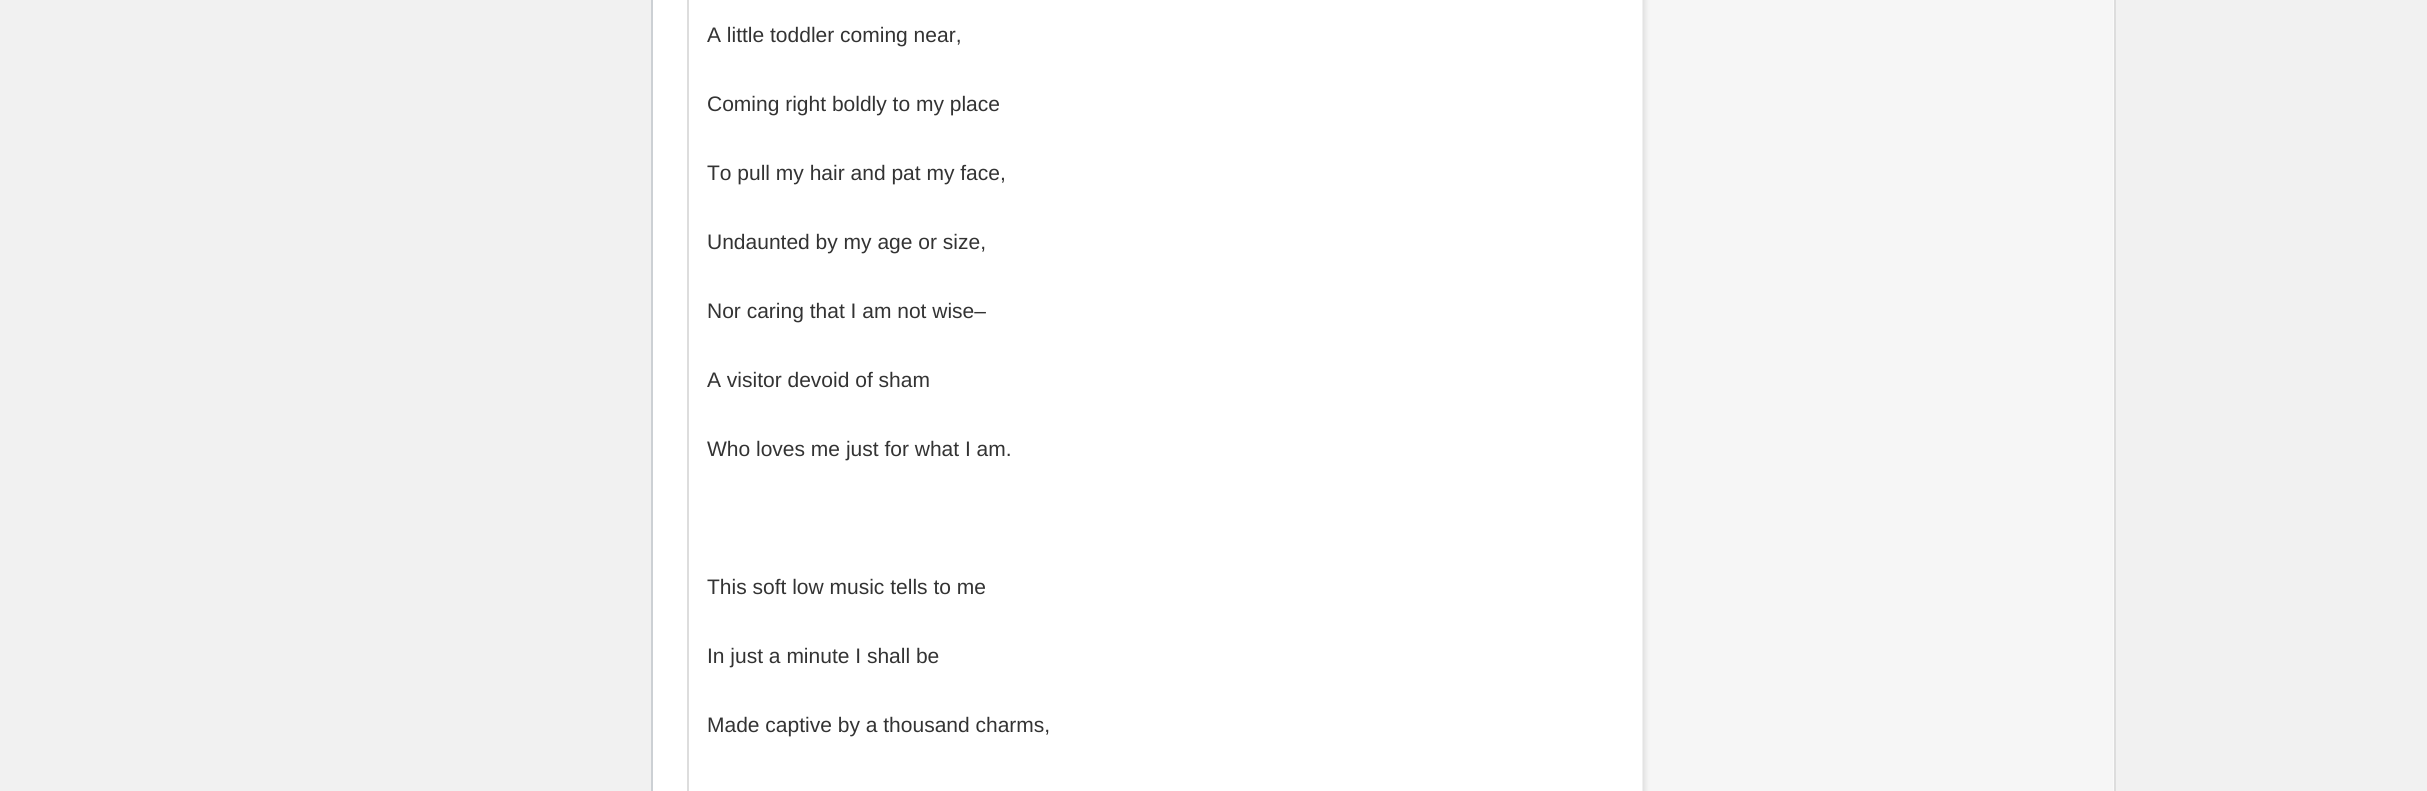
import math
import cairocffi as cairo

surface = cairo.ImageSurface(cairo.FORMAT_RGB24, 2427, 791)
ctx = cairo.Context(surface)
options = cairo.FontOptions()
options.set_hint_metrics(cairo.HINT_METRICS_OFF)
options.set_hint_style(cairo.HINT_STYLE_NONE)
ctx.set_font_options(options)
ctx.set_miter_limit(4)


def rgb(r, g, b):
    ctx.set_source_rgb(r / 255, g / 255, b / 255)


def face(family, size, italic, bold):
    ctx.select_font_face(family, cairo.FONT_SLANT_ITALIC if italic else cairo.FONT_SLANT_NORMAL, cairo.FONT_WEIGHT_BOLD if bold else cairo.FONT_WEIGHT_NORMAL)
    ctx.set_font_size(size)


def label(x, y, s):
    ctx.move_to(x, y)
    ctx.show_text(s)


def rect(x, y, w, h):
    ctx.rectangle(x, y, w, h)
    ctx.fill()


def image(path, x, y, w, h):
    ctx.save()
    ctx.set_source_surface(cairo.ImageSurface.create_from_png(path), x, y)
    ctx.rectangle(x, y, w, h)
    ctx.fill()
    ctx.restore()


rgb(241, 241, 241)
ctx.paint()
rgb(255, 255, 255)
rect(653, 0, 34, 791)
ctx.rectangle(652, -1, 1123, 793)
rgb(204, 208, 212)
ctx.stroke()
rgb(255, 255, 255)
rect(689, 0, 1425, 791)
image('image0.png', 1642, 0, 472, 791)
rgb(221, 221, 221)
rect(2114, 0, 2, 791)
rect(687, 0, 2, 791)
face('Liberation Sans', 21, 0, 0)
rgb(51, 51, 51)
label(707, 42, 'A little toddler coming near,')
label(707, 111, 'Coming right boldly to my place')
label(707, 180, 'To pull my hair and pat my face,')
label(707, 249, 'Undaunted by my age or size,')
label(707, 318, 'Nor caring that I am not wise–')
label(707, 387, 'A visitor devoid of sham')
label(707, 456, 'Who loves me just for what I am.')
label(707, 594, 'This soft low music tells to me')
label(707, 663, 'In just a minute I shall be')
label(707, 732, 'Made captive by a thousand charms,')
surface.write_to_png('render.png')
